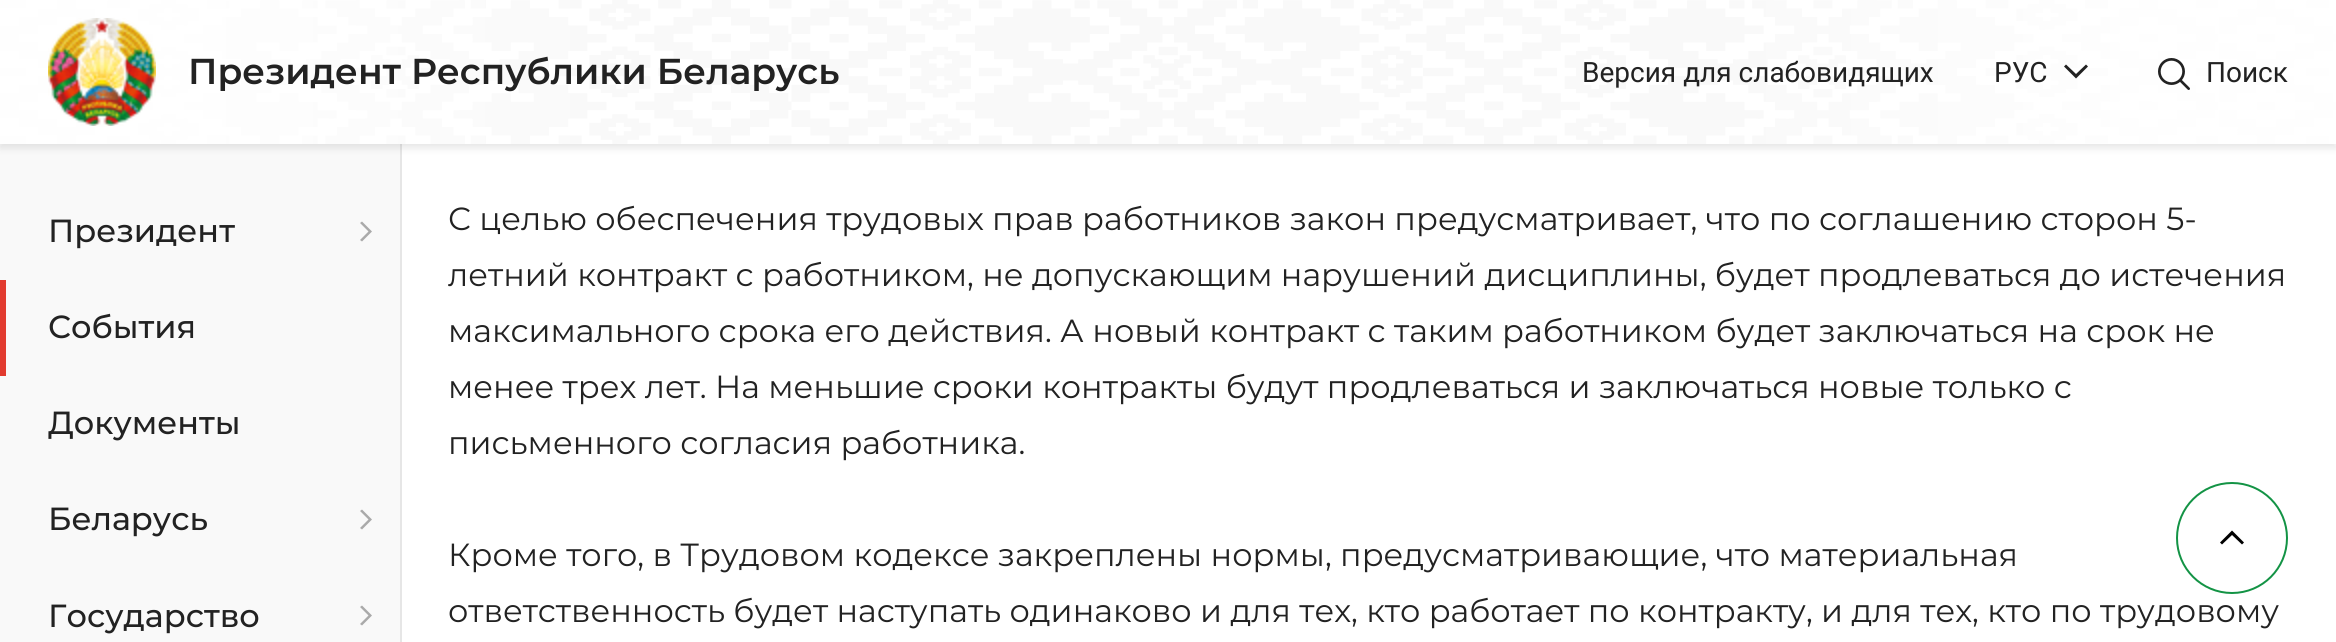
import math
import cairocffi as cairo

surface = cairo.ImageSurface(cairo.FORMAT_RGB24, 2336, 642)
ctx = cairo.Context(surface)
options = cairo.FontOptions()
options.set_hint_metrics(cairo.HINT_METRICS_OFF)
options.set_hint_style(cairo.HINT_STYLE_NONE)
ctx.set_font_options(options)
ctx.set_miter_limit(4)


def rgb(r, g, b):
    ctx.set_source_rgb(r / 255, g / 255, b / 255)


def face(family, size, italic, bold):
    ctx.select_font_face(family, cairo.FONT_SLANT_ITALIC if italic else cairo.FONT_SLANT_NORMAL, cairo.FONT_WEIGHT_BOLD if bold else cairo.FONT_WEIGHT_NORMAL)
    ctx.set_font_size(size)


def label(x, y, s):
    ctx.move_to(x, y)
    ctx.show_text(s)


def rect(x, y, w, h):
    ctx.rectangle(x, y, w, h)
    ctx.fill()


def rrect(x, y, w, h, r):
    ctx.new_sub_path()
    for i, (u, v) in enumerate([(x + w - r, y + h - r), (x + r, y + h - r), (x + r, y + r), (x + w - r, y + r)]):
        ctx.arc(u, v, r, i * math.pi / 2, (i + 1) * math.pi / 2)
    ctx.close_path()


def soft_shadow(x, y, w, h, r, blur, alpha):
    ctx.push_group_with_content(cairo.CONTENT_ALPHA)
    ctx.set_operator(cairo.OPERATOR_SOURCE)
    for i in range(15, -16, -2):
        e = blur * i / 6
        if min(w, h) + 2 * e > 0:
            ctx.set_source_rgba(0, 0, 0, alpha * math.erfc((i - 1) / 8.5) / 2)
            rrect(x - e, y - e, w + 2 * e, h + 2 * e, max(0, min(r + e + blur * .6, min(w, h) / 2 + e)))
            ctx.fill()
    ctx.mask(ctx.pop_group())


def image(path, x, y, w, h):
    ctx.save()
    ctx.set_source_surface(cairo.ImageSurface.create_from_png(path), x, y)
    ctx.rectangle(x, y, w, h)
    ctx.fill()
    ctx.restore()


rgb(255, 255, 255)
ctx.paint()
rgb(230, 230, 230)
rect(400, 144, 2, 498)
rgb(249, 249, 249)
rect(0, 144, 400, 498)
rgb(34, 34, 34)
soft_shadow(0, 4, 2336, 144, 0, 4, 0.12)
image('image0.png', 0, 0, 2336, 144)
image('image1.png', 48, 18, 108, 108)
face('Montserrat SemiBold', 36, 0, 0)
rgb(34, 34, 34)
label(188, 84, 'Президент Республики Беларусь')
face('Roboto', 28, 0, 0)
label(1582, 82, 'Версия для слабовидящих')
label(1994, 82, 'РУС')
ctx.new_path()
ctx.move_to(2086, 64.5)
ctx.line_to(2076, 74)
ctx.line_to(2066, 64.5)
ctx.line_to(2064, 66.5)
ctx.line_to(2076, 78.5)
ctx.line_to(2088, 66.5)
ctx.close_path()
ctx.fill()
image('image2.png', 2158, 58, 32, 32)
label(2206, 82, 'Поиск')
face('Montserrat Medium', 32, 0, 0)
label(48, 242, 'Президент')
rgb(170, 170, 170)
ctx.new_path()
ctx.move_to(360, 223)
ctx.line_to(368.5, 231.5)
ctx.line_to(360, 240)
ctx.line_to(362, 241.5)
ctx.line_to(372, 231.5)
ctx.line_to(362, 221.5)
ctx.close_path()
ctx.fill()
rgb(226, 59, 47)
rect(0, 280, 6, 96)
rgb(34, 34, 34)
label(48, 338, 'События')
label(48, 434, 'Документы')
label(48, 530, 'Беларусь')
rgb(170, 170, 170)
ctx.new_path()
ctx.move_to(360, 511)
ctx.line_to(368.5, 519.5)
ctx.line_to(360, 528)
ctx.line_to(362, 529.5)
ctx.line_to(372, 519.5)
ctx.line_to(362, 509.5)
ctx.close_path()
ctx.fill()
rgb(34, 34, 34)
label(48, 627, 'Государство')
rgb(170, 170, 170)
ctx.new_path()
ctx.move_to(360, 607)
ctx.line_to(368.5, 615.5)
ctx.line_to(360, 624)
ctx.line_to(362, 625.5)
ctx.line_to(372, 615.5)
ctx.line_to(362, 605.5)
ctx.close_path()
ctx.fill()
face('Montserrat', 32, 0, 0)
rgb(34, 34, 34)
label(448, 230, 'С целью обеспечения трудовых прав работников закон предусматривает, что по соглашению сторон 5-')
label(448, 286, 'летний контракт с работником, не допускающим нарушений дисциплины, будет продлеваться до истечения')
label(448, 342, 'максимального срока его действия. А новый контракт с таким работником будет заключаться на срок не')
label(448, 398, 'менее трех лет. На меньшие сроки контракты будут продлеваться и заключаться новые только с')
label(448, 454, 'письменного согласия работника.')
label(448, 566, 'Кроме того, в Трудовом кодексе закреплены нормы, предусматривающие‚ что материальная')
label(448, 622, 'ответственность будет наступать одинаково и для тех, кто работает по контракту, и для тех, кто по трудовому')
ctx.new_path()
ctx.arc(2232, 538, 55, 0, 2 * math.pi)
rgb(19, 147, 69)
ctx.stroke()
rgb(0, 0, 0)
ctx.new_path()
ctx.move_to(2242, 544.5)
ctx.line_to(2232, 535)
ctx.line_to(2222, 544.5)
ctx.line_to(2220, 542.5)
ctx.line_to(2232, 530.5)
ctx.line_to(2244, 542.5)
ctx.close_path()
ctx.fill()
surface.write_to_png('render.png')
